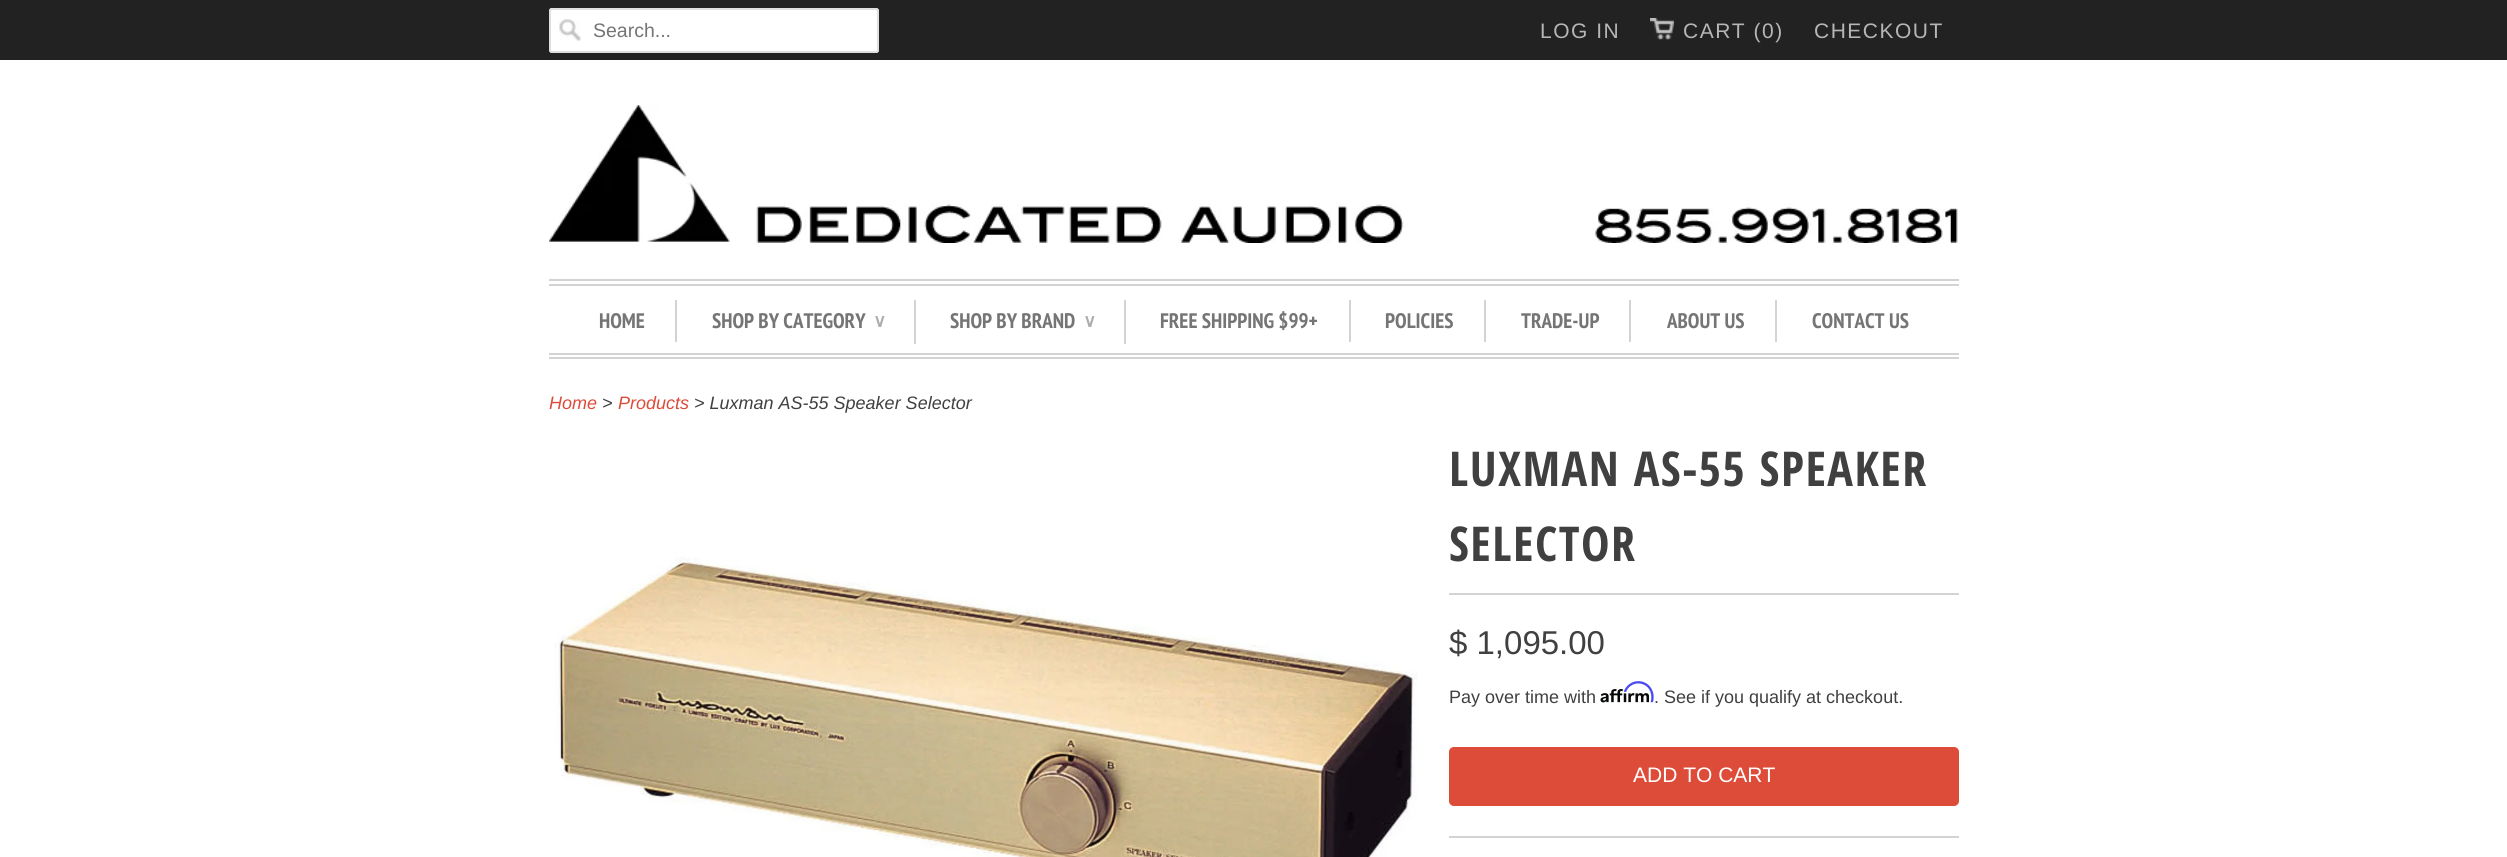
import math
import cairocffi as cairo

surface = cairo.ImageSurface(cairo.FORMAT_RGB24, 2507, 857)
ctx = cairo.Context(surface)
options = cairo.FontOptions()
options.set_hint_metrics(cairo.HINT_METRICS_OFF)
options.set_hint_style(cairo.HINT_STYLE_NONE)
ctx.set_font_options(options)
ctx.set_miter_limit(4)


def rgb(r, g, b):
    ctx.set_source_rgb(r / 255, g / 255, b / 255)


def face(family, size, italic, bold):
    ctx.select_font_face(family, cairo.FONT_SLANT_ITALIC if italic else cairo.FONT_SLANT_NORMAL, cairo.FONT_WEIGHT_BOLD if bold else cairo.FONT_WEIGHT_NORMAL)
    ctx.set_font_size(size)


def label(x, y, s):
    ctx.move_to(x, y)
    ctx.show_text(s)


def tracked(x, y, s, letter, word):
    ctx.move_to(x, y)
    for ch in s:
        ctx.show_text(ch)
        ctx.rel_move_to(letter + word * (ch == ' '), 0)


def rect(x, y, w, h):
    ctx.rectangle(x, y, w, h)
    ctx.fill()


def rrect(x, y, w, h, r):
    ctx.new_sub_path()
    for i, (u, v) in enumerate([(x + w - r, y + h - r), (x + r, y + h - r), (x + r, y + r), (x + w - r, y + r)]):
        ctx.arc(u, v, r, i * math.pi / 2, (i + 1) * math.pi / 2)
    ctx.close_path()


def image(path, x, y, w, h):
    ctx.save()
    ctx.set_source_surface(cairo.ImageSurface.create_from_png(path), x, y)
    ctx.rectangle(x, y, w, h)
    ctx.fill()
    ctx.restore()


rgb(255, 255, 255)
ctx.paint()
rgb(34, 34, 34)
rect(0, 0, 2507, 60)
rgb(255, 255, 255)
rrect(549, 8, 330, 45, 3)
ctx.fill()
image('image0.png', 559, 19, 22, 22)
rrect(550, 9, 328, 43, 2)
rgb(223, 223, 223)
ctx.stroke()
face('Liberation Sans', 19.5, 0, 0)
rgb(117, 117, 117)
label(593, 37, 'Search...')
face('Liberation Sans', 21, 0, 0)
rgb(182, 182, 182)
tracked(1540, 38, 'LOG IN', 1.5, 0)
image('image1.png', 1650, 18, 24, 22)
tracked(1683, 38, 'CART (0)', 1.5, 0)
tracked(1814, 38, 'CHECKOUT', 1.5, 0)
image('image2.png', 549, 105, 1409, 138)
rgb(211, 211, 211)
rect(549, 279, 1410, 2)
rect(549, 284, 1410, 2)
rect(549, 353, 1410, 2)
rect(549, 357, 1410, 2)
rect(675, 300, 2, 42)
face('PT Sans Narrow', 21, 0, 1)
rgb(117, 117, 117)
label(599, 328, 'HOME')
rgb(211, 211, 211)
rect(914, 300, 2, 44)
rgb(117, 117, 117)
label(712, 328, 'SHOP BY CATEGORY')
face('DejaVu Sans', 18, 0, 1)
rgb(173, 173, 173)
label(873, 327, '∨')
rgb(211, 211, 211)
rect(1124, 300, 2, 44)
face('PT Sans Narrow', 21, 0, 1)
rgb(117, 117, 117)
label(950, 328, 'SHOP BY BRAND')
face('DejaVu Sans', 18, 0, 1)
rgb(173, 173, 173)
label(1083, 327, '∨')
rgb(211, 211, 211)
rect(1349, 300, 2, 42)
face('PT Sans Narrow', 21, 0, 1)
rgb(117, 117, 117)
label(1160, 328, 'FREE SHIPPING $99+')
rgb(211, 211, 211)
rect(1484, 300, 2, 42)
rgb(117, 117, 117)
label(1385, 328, 'POLICIES')
rgb(211, 211, 211)
rect(1629, 300, 2, 42)
rgb(117, 117, 117)
label(1521, 328, 'TRADE-UP')
rgb(211, 211, 211)
rect(1775, 300, 2, 42)
rgb(117, 117, 117)
label(1667, 328, 'ABOUT US')
label(1812, 328, 'CONTACT US')
face('Liberation Sans', 18, 1, 0)
rgb(221, 75, 57)
label(549, 409, 'Home')
rgb(64, 64, 64)
label(602, 409, '>')
rgb(221, 75, 57)
label(618, 409, 'Products')
rgb(64, 64, 64)
label(694, 409, '> Luxman AS-55 Speaker Selector')
image('image3.png', 554, 556, 864, 301)
rgb(211, 211, 211)
rect(1449, 593, 510, 2)
face('Open Sans Condensed', 48, 0, 1)
rgb(64, 64, 64)
tracked(1449, 486, 'LUXMAN AS-55 SPEAKER', 1.5, 0)
tracked(1449, 561, 'SELECTOR', 1.5, 0)
face('Liberation Sans', 33, 0, 0)
label(1449, 654, '$ 1,095.00')
face('Liberation Sans', 18, 0, 0)
label(1449, 703, 'Pay over time with')
image('image5.png', 1600, 689, 49, 14)
image('image4.png', 1623, 681, 31, 22)
label(1654, 703, '. See if you qualify at checkout.')
rgb(221, 75, 57)
rrect(1449, 747, 510, 59, 5)
ctx.fill()
face('Liberation Sans', 21, 0, 0)
rgb(255, 255, 255)
label(1633, 782, 'ADD TO CART')
rgb(211, 211, 211)
rect(1449, 836, 510, 2)
surface.write_to_png('render.png')
